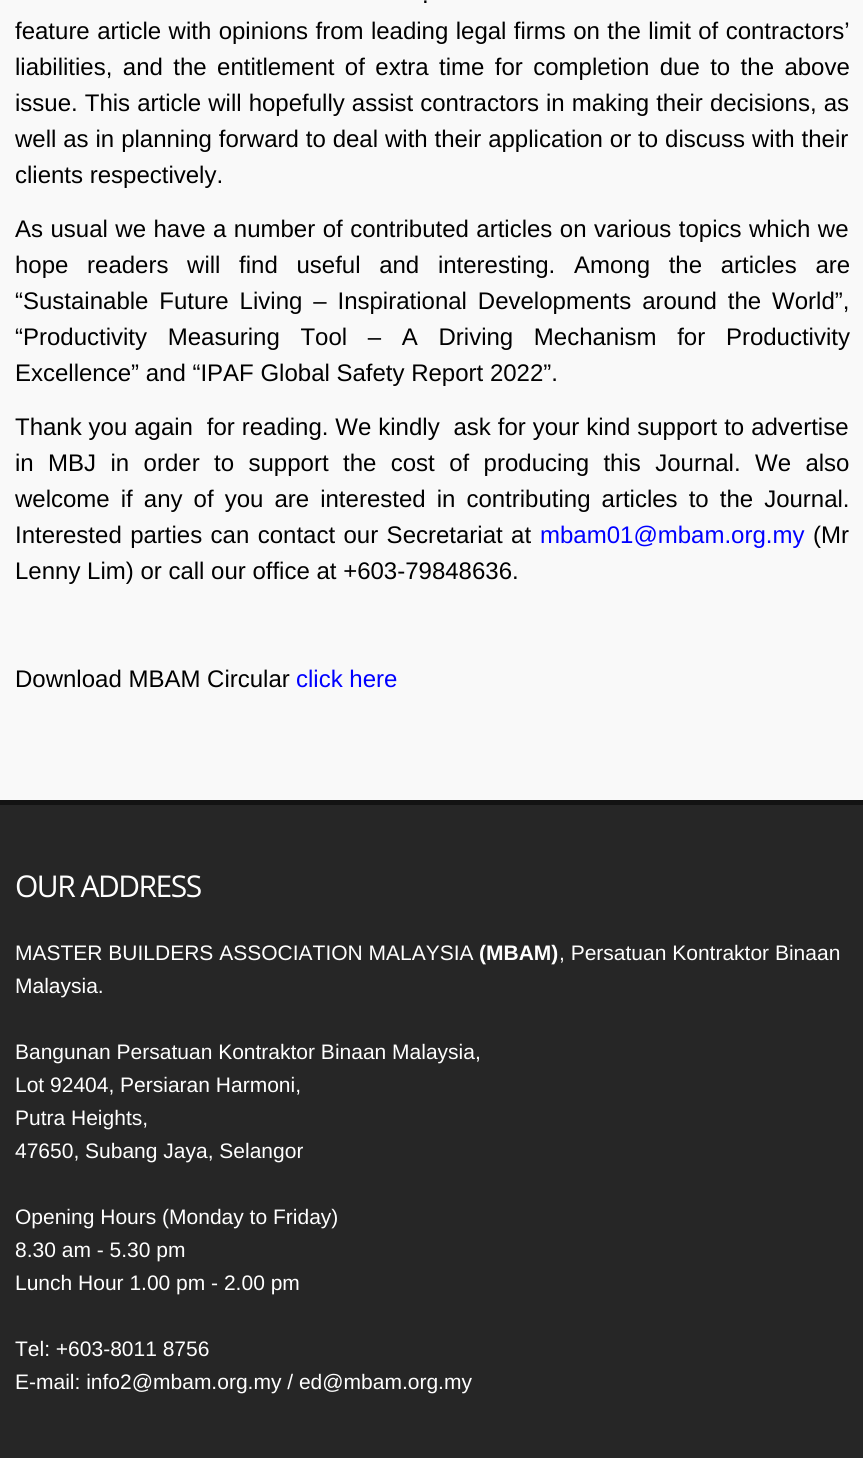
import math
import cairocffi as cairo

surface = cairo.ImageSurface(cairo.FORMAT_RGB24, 863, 1458)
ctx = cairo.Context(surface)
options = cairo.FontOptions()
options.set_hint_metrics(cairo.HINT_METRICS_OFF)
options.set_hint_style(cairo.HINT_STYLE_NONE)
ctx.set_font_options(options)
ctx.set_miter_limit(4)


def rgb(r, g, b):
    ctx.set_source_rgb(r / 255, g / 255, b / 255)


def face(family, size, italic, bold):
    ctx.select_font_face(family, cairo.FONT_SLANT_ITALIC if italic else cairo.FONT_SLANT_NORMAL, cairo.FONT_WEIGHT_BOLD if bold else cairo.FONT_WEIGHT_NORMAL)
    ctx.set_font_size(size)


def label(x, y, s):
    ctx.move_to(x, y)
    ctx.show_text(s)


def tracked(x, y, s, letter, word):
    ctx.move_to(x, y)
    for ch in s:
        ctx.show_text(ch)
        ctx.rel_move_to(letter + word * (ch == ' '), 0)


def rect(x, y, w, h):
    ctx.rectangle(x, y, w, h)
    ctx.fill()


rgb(38, 38, 38)
ctx.paint()
rgb(249, 249, 249)
rect(0, 0, 863, 800)
face('Liberation Sans', 24, 0, 0)
rgb(0, 0, 0)
tracked(422, 3, '.', 0, 6)
tracked(15, 39, 'feature article with opinions from leading legal firms on the limit of contractors’', 0, 0.75)
tracked(15, 75, 'liabilities, and the entitlement of extra time for completion due to the above', 0, 3.75)
tracked(15, 111, 'issue. This article will hopefully assist contractors in making their decisions, as', 0, 0.4)
tracked(15, 147, 'well as in planning forward to deal with their application or to discuss with their', 0, 0.25)
label(15, 183, 'clients respectively.')
tracked(15, 237, 'As usual we have a number of contributed articles on various topics which we', 0, 0.8)
tracked(15, 273, 'hope readers will find useful and interesting. Among the articles are', 0, 12)
tracked(15, 309, '“Sustainable Future Living – Inspirational Developments around the World”,', 0, 4.25)
tracked(15, 345, '“Productivity Measuring Tool – A Driving Mechanism for Productivity', 0, 14)
label(15, 381, 'Excellence” and “IPAF Global Safety Report 2022”.')
tracked(15, 435, 'Thank you again  for reading. We kindly  ask for your kind support to advertise', 0, 0.25)
tracked(15, 471, 'in MBJ in order to support the cost of producing this Journal. We also', 0, 7.75)
tracked(15, 507, 'welcome if any of you are interested in contributing articles to the Journal.', 0, 4.4)
tracked(15, 543, 'Interested parties can contact our Secretariat at', 0, 1.75)
rgb(0, 0, 255)
label(540, 543, 'mbam01@mbam.org.my')
rgb(0, 0, 0)
label(813, 543, '(Mr')
label(15, 579, 'Lenny Lim) or call our office at +603-79848636.')
label(15, 687, 'Download MBAM Circular')
rgb(0, 0, 255)
label(296, 687, 'click here')
rgb(19, 19, 19)
rect(0, 800, 863, 5)
face('Open Sans', 30, 0, 0)
rgb(255, 255, 255)
tracked(15, 897, 'OUR ADDRESS', -1.5, 0)
face('Liberation Sans', 21, 0, 0)
label(15, 960, 'MASTER BUILDERS ASSOCIATION MALAYSIA')
face('Liberation Sans', 21, 0, 1)
label(479, 960, '(MBAM)')
face('Liberation Sans', 21, 0, 0)
label(559, 960, ', Persatuan Kontraktor Binaan')
label(15, 993, 'Malaysia.')
label(15, 1059, 'Bangunan Persatuan Kontraktor Binaan Malaysia,')
label(15, 1092, 'Lot 92404, Persiaran Harmoni,')
label(15, 1125, 'Putra Heights,')
label(15, 1158, '47650, Subang Jaya, Selangor')
label(15, 1224, 'Opening Hours (Monday to Friday)')
label(15, 1257, '8.30 am - 5.30 pm')
label(15, 1290, 'Lunch Hour 1.00 pm - 2.00 pm')
label(15, 1356, 'Tel: +603-8011 8756')
label(15, 1389, 'E-mail: info2@mbam.org.my / ed@mbam.org.my')
surface.write_to_png('render.png')
